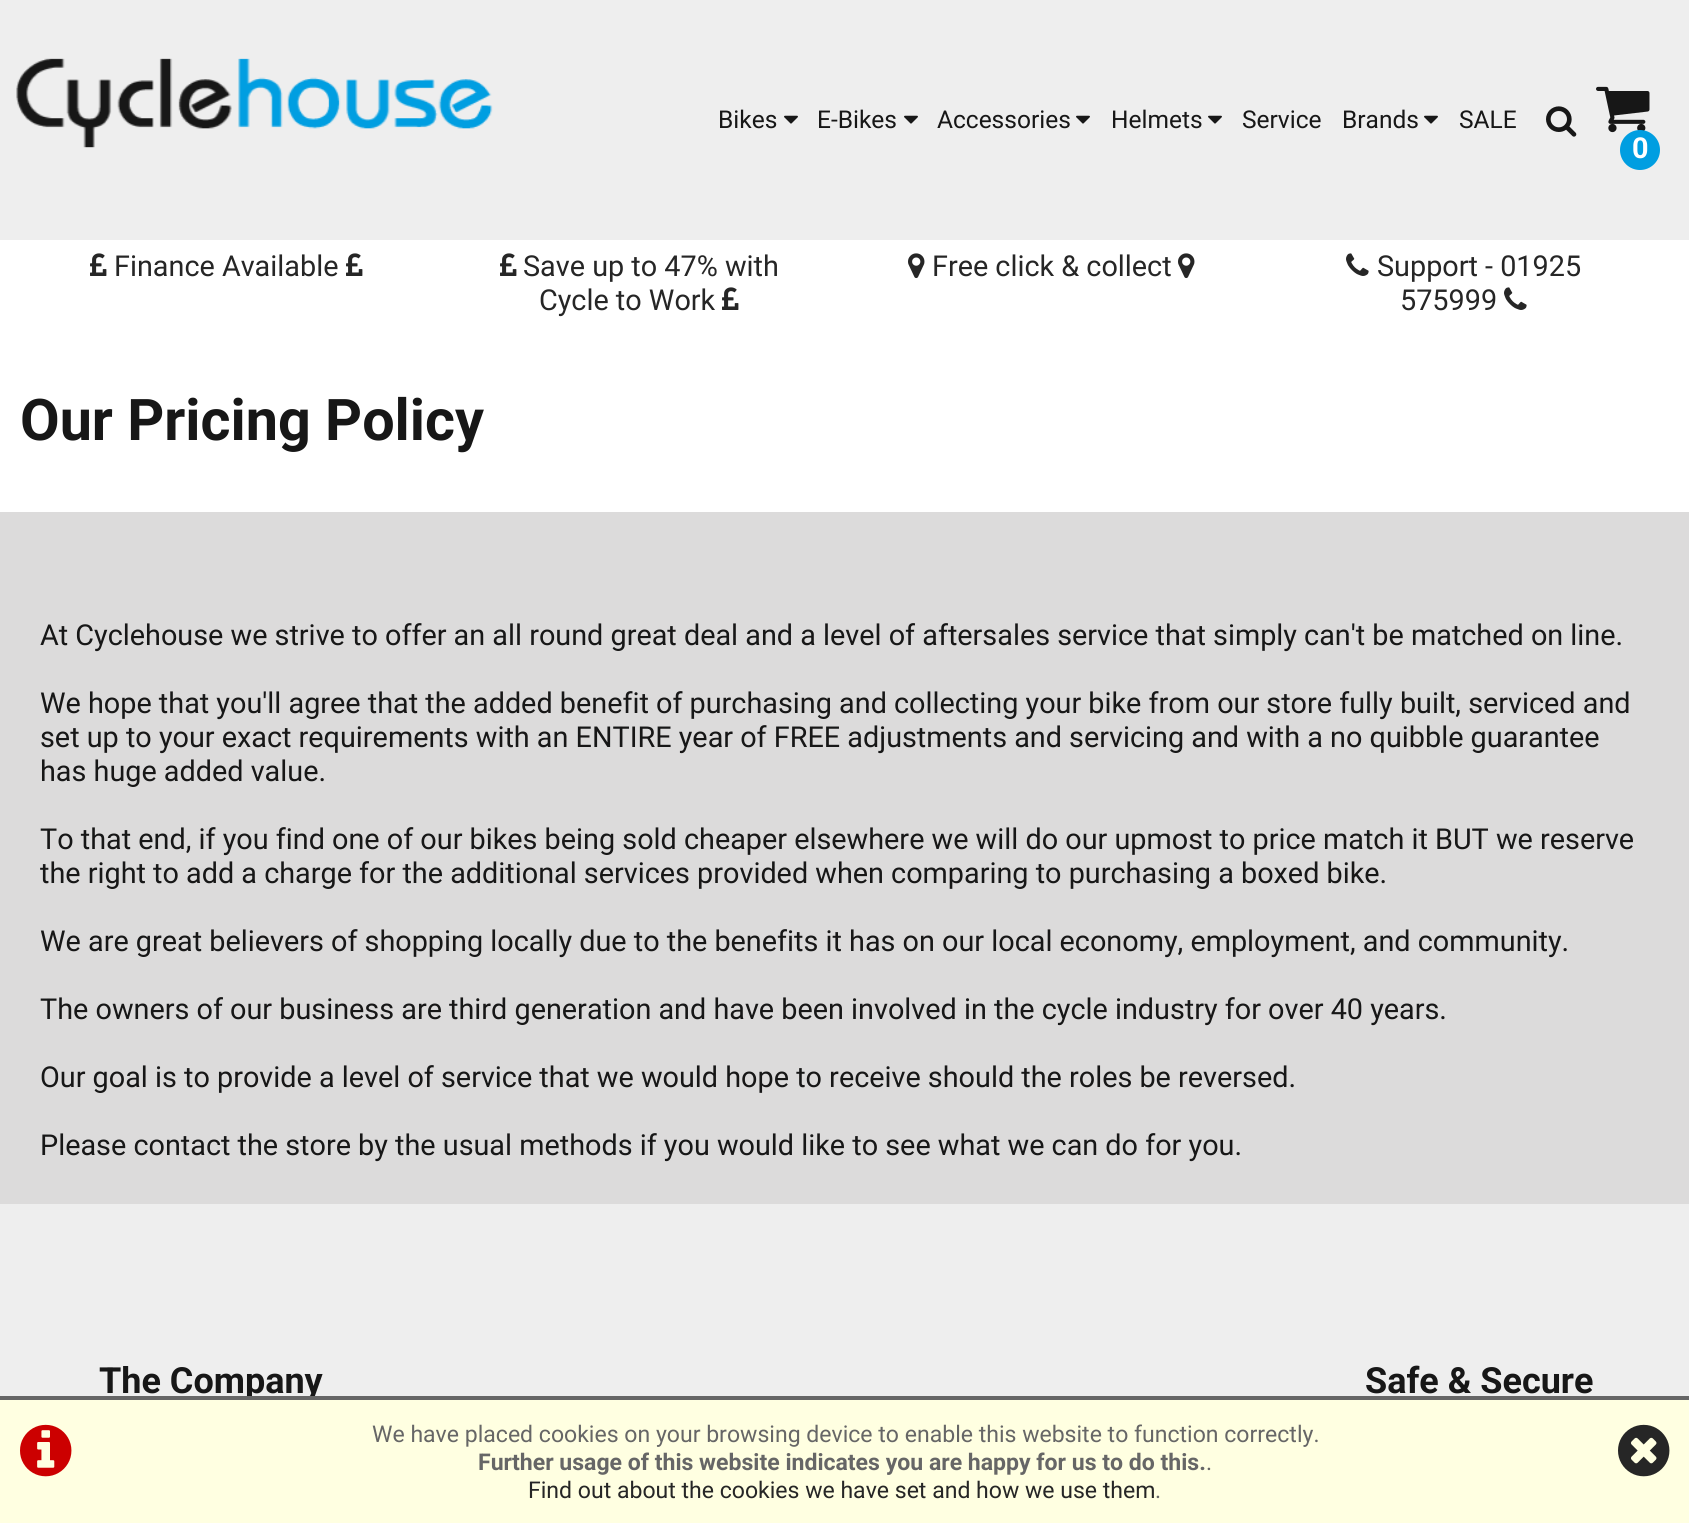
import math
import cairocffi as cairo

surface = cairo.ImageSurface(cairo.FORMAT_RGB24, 1689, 1523)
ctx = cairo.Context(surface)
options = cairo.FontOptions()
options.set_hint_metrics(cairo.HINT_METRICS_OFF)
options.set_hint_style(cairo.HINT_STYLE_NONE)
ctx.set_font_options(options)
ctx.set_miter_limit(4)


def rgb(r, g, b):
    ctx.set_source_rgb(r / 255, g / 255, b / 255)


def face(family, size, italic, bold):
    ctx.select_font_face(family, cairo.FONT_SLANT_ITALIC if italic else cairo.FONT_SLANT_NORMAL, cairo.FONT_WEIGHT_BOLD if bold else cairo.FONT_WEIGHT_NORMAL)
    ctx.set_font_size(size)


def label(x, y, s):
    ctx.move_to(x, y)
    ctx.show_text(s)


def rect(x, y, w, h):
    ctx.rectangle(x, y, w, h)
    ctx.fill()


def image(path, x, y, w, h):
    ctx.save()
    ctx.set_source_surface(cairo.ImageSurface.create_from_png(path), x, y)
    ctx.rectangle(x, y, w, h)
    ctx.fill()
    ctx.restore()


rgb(255, 255, 255)
ctx.paint()
rgb(238, 238, 238)
rect(0, 0, 1689, 240)
image('image0.png', 16, 58, 477, 90)
face('Roboto', 24.5, 0, 0)
rgb(23, 23, 23)
label(718, 128, 'Bikes')
image('image1.png', 784, 115, 14, 9)
label(817, 128, 'E-Bikes')
image('image1.png', 904, 115, 14, 9)
label(937, 128, 'Accessories')
image('image1.png', 1076, 115, 14, 9)
label(1111, 128, 'Helmets')
image('image1.png', 1208, 115, 14, 9)
label(1242, 128, 'Service')
label(1342, 128, 'Brands')
image('image1.png', 1424, 115, 14, 9)
label(1459, 128, 'SALE')
image('image2.png', 1546, 106, 31, 31)
image('image3.png', 1596, 86, 54, 47)
rgb(0, 158, 225)
ctx.arc(1640, 150, 20, 0, 2 * math.pi)
ctx.fill()
face('Roboto', 28.8, 0, 1)
rgb(255, 255, 255)
label(1632, 158, '0')
image('image4.png', 90, 253, 17, 23)
face('Roboto', 28.8, 0, 0)
rgb(38, 38, 38)
label(114, 276, 'Finance Available')
image('image4.png', 346, 253, 17, 23)
image('image4.png', 500, 253, 17, 23)
label(523, 276, 'Save up to 47% with')
label(539, 310, 'Cycle to Work')
image('image4.png', 722, 287, 17, 23)
image('image5.png', 908, 253, 17, 26)
label(932, 276, 'Free click & collect')
image('image5.png', 1178, 253, 17, 26)
image('image6.png', 1346, 253, 23, 23)
label(1377, 276, 'Support - 01925')
label(1400, 310, '575999')
image('image6.png', 1504, 287, 23, 23)
face('Roboto', 57.5, 0, 1)
rgb(23, 23, 23)
label(20, 440, 'Our Pricing Policy')
rgb(220, 219, 219)
rect(0, 512, 1689, 692)
face('Roboto', 28.8, 0, 0)
rgb(23, 23, 23)
label(40, 645, 'At Cyclehouse we strive to offer an all round great deal and a level of aftersales service that simply can\'t be matched on line.')
label(40, 713, 'We hope that you\'ll agree that the added benefit of purchasing and collecting your bike from our store fully built, serviced and')
label(40, 747, 'set up to your exact requirements with an ENTIRE year of FREE adjustments and servicing and with a no quibble guarantee')
label(40, 781, 'has huge added value.')
label(40, 849, 'To that end, if you find one of our bikes being sold cheaper elsewhere we will do our upmost to price match it BUT we reserve')
label(40, 883, 'the right to add a charge for the additional services provided when comparing to purchasing a boxed bike.')
label(40, 951, 'We are great believers of shopping locally due to the benefits it has on our local economy, employment, and community.')
label(40, 1019, 'The owners of our business are third generation and have been involved in the cycle industry for over 40 years.')
label(40, 1087, 'Our goal is to provide a level of service that we would hope to receive should the roles be reversed.')
label(40, 1155, 'Please contact the store by the usual methods if you would like to see what we can do for you.')
rgb(238, 238, 238)
rect(0, 1204, 1689, 192)
face('Roboto', 36, 0, 1)
rgb(23, 23, 23)
label(99, 1393, 'The Company')
rgb(255, 255, 225)
rect(0, 1400, 1689, 123)
rgb(102, 102, 102)
rect(0, 1396, 1689, 4)
image('image7.png', 20, 1424, 52, 53)
face('Roboto', 23.05, 0, 0)
label(372, 1442, 'We have placed cookies on your browsing device to enable this website to function correctly.')
face('Roboto', 23.05, 0, 1)
label(478, 1470, 'Further usage of this website indicates you are happy for us to do this.')
face('Roboto', 23.05, 0, 0)
label(1206, 1470, '.')
rgb(38, 38, 38)
label(528, 1498, 'Find out about the cookies we have set and how we use them')
rgb(102, 102, 102)
label(1155, 1498, '.')
image('image8.png', 1618, 1424, 52, 53)
face('Roboto', 36, 0, 1)
rgb(23, 23, 23)
label(1365, 1393, 'Safe & Secure')
surface.write_to_png('render.png')
